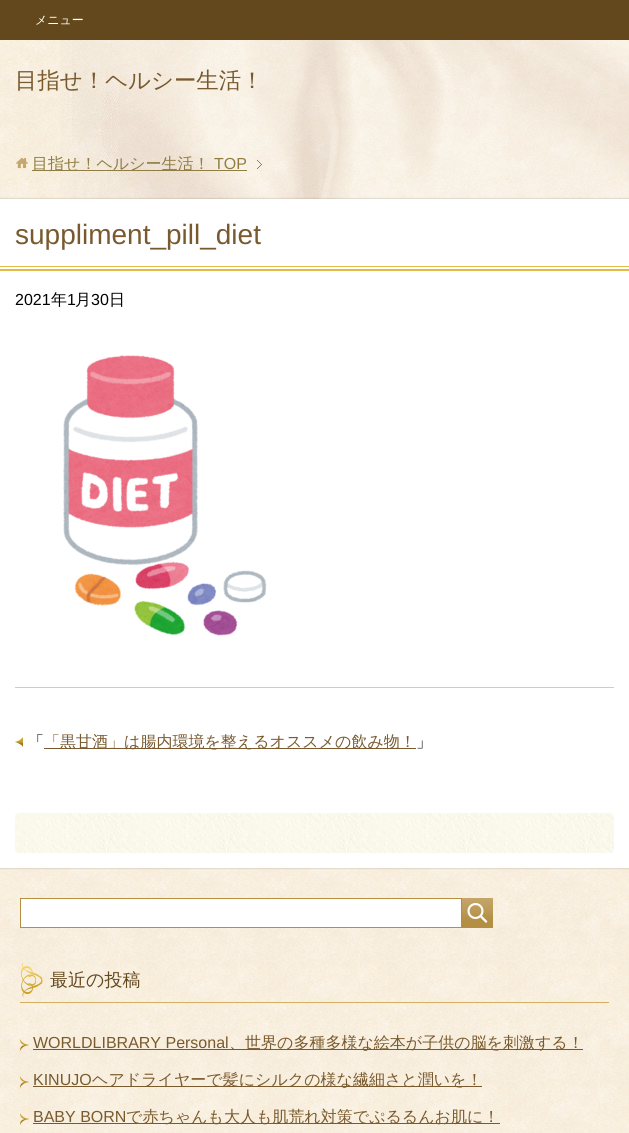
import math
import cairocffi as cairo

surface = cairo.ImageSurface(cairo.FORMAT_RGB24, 629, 1133)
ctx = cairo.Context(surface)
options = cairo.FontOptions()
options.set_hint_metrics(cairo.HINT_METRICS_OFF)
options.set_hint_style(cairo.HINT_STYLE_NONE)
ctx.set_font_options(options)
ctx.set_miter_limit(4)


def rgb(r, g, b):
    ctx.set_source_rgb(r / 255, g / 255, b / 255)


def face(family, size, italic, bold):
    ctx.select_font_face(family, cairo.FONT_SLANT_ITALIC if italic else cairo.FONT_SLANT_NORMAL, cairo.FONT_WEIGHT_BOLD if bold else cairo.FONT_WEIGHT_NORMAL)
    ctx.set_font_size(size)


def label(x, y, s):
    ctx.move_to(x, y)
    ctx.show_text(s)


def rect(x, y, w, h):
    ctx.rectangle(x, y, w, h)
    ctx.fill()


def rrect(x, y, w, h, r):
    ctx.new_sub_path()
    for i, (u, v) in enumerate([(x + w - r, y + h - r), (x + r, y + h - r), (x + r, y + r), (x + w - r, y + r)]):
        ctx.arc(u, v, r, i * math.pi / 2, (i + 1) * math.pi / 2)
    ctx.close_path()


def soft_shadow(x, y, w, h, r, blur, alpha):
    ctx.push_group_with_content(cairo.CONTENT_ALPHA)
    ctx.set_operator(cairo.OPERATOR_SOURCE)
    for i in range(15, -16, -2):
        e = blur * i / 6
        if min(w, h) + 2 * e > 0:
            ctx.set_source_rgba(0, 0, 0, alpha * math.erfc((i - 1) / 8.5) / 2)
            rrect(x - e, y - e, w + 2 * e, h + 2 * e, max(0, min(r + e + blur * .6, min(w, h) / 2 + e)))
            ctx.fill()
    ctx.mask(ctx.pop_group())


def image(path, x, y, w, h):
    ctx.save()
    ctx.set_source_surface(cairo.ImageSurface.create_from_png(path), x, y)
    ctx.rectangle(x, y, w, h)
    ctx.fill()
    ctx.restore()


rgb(255, 255, 255)
ctx.paint()
image('image0.png', 0, 40, 629, 1093)
image('image1.png', 60, 40, 569, 159)
rgb(98, 72, 28)
rect(0, 0, 629, 40)
face('WenQuanYi Zen Hei Medium', 12, 0, 0)
rgb(255, 255, 255)
label(35, 24, 'メニュー')
face('WenQuanYi Zen Hei Medium', 22.4, 0, 0)
rgb(121, 90, 46)
label(15, 88, '目指せ！ヘルシー生活！')
image('image2.png', 257, 160, 5, 9)
image('image3.png', 16, 157, 12, 12)
rgb(144, 125, 67)
rect(32, 170, 215, 1)
face('WenQuanYi Zen Hei Medium', 16, 0, 0)
label(32, 169, '目指せ！ヘルシー生活！')
face('Liberation Sans', 16, 0, 0)
label(214, 169, 'TOP')
rgb(0, 0, 0)
soft_shadow(-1, 198, 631, 671, 0, 0.5, 0.1)
rgb(255, 255, 255)
rect(0, 199, 629, 669)
image('image4.png', 0, 266, 629, 5)
face('Liberation Sans', 28, 0, 0)
rgb(121, 90, 46)
label(15, 244, 'suppliment_pill_diet')
face('Liberation Sans', 16, 0, 0)
rgb(0, 0, 0)
label(15, 305, '2021')
face('WenQuanYi Zen Hei Medium', 16, 0, 0)
label(51, 305, '年')
face('Liberation Sans', 16, 0, 0)
label(67, 305, '1')
face('WenQuanYi Zen Hei Medium', 16, 0, 0)
label(75, 305, '月')
face('Liberation Sans', 16, 0, 0)
label(91, 305, '30')
face('WenQuanYi Zen Hei Medium', 16, 0, 0)
label(109, 305, '日')
image('image5.png', 63, 355, 204, 281)
rgb(204, 204, 204)
rect(15, 687, 599, 1)
image('image6.png', 15, 737, 8, 10)
rgb(0, 0, 0)
label(28, 747, '「')
rgb(121, 90, 46)
rect(44, 748, 372, 1)
label(44, 747, '「黒甘酒」は腸内環境を整えるオススメの飲み物！')
rgb(0, 0, 0)
label(416, 747, '」')
image('image7.png', 15, 813, 599, 40)
rgb(255, 255, 255)
ctx.rectangle(20.5, 898.5, 441, 29)
ctx.fill_preserve()
rgb(180, 143, 67)
ctx.set_line_width(1)
ctx.stroke()
gradient = cairo.LinearGradient(478, 898, 478, 928)
gradient.add_color_stop_rgba(0, 0.769, 0.655, 0.42, 1)
gradient.add_color_stop_rgba(0.75, 0.706, 0.561, 0.263, 1)
ctx.set_source(gradient)
rect(462, 898, 31, 30)
image('image8.png', 467, 903, 21, 20)
image('image9.png', 20, 963, 23, 34)
rgb(213, 174, 96)
rect(20, 1002, 589, 1)
face('WenQuanYi Zen Hei Medium', 18, 0, 0)
rgb(98, 72, 28)
label(50, 986, '最近の投稿')
image('image10.png', 20, 1039, 9, 12)
face('Liberation Sans', 16, 0, 0)
rgb(121, 90, 46)
label(33, 1048, 'WORLDLIBRARY Personal')
rect(33, 1049, 550, 1)
face('WenQuanYi Zen Hei Medium', 16, 0, 0)
label(229, 1048, '、世界の多種多様な絵本が子供の脳を刺激する！')
image('image11.png', 20, 1076, 9, 12)
face('Liberation Sans', 16, 0, 0)
label(33, 1085, 'KINUJO')
rect(33, 1086, 449, 1)
face('WenQuanYi Zen Hei Medium', 16, 0, 0)
label(92, 1085, 'ヘアドライヤーで髪にシルクの様な繊細さと潤いを！')
image('image12.png', 20, 1113, 9, 12)
face('Liberation Sans', 16, 0, 0)
label(33, 1122, 'BABY BORN')
rect(33, 1123, 467, 1)
face('WenQuanYi Zen Hei Medium', 16, 0, 0)
label(126, 1122, 'で赤ちゃんも大人も肌荒れ対策でぷるるんお肌に！')
surface.write_to_png('render.png')
